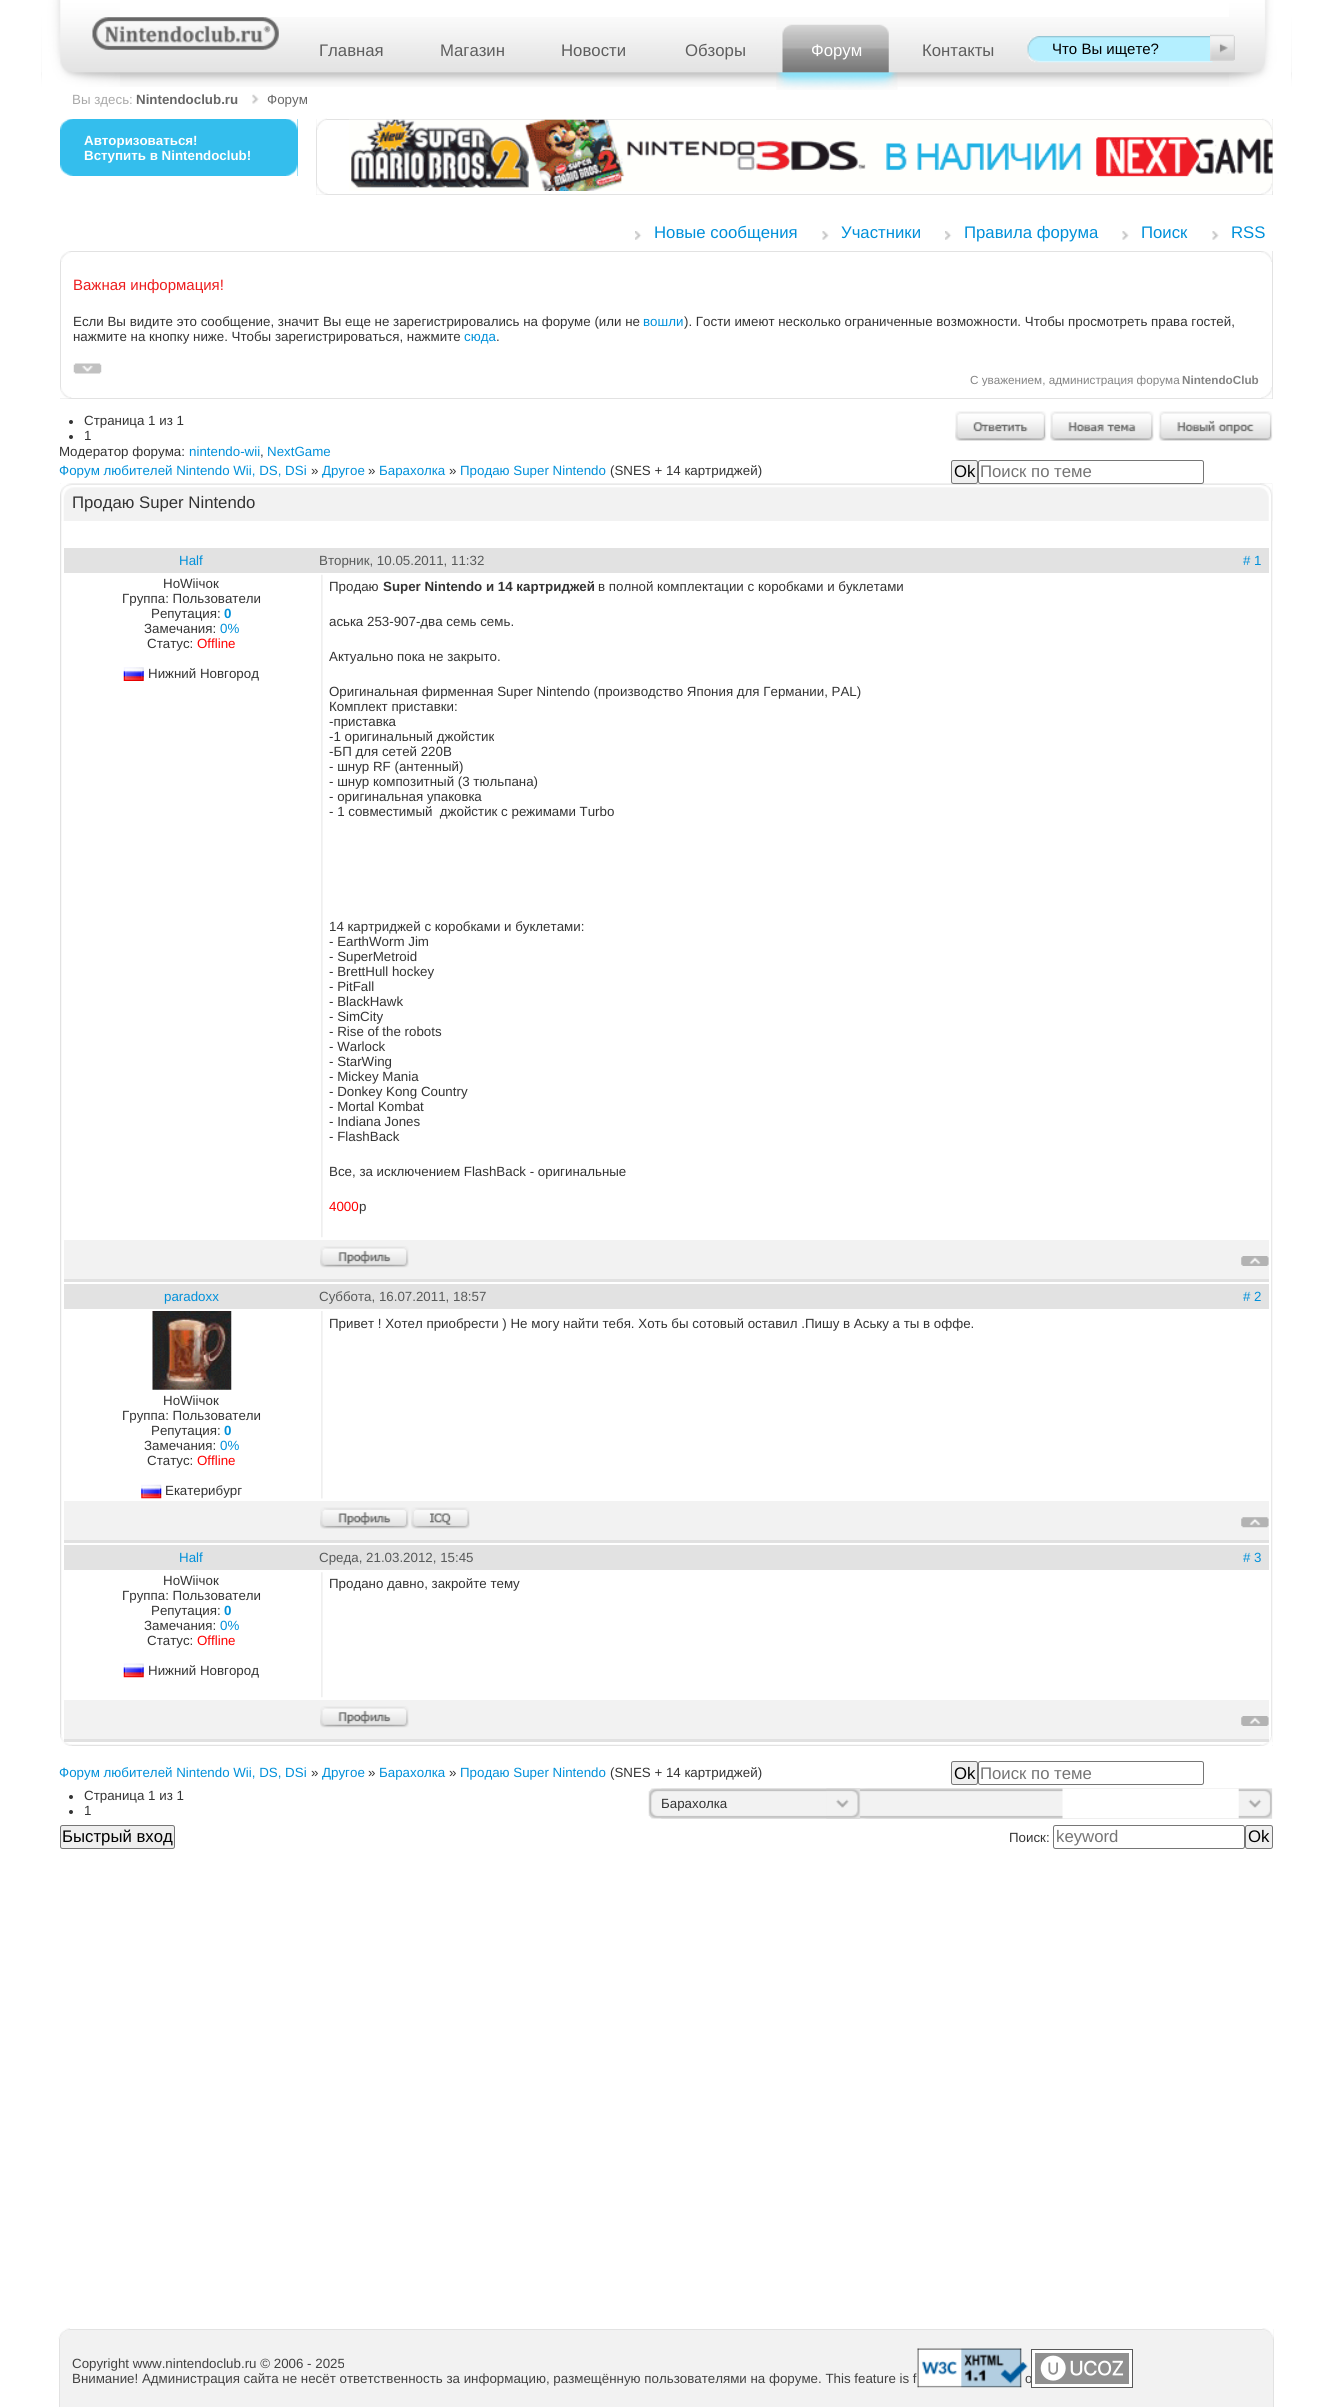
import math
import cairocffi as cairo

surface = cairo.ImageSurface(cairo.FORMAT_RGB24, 1331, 2407)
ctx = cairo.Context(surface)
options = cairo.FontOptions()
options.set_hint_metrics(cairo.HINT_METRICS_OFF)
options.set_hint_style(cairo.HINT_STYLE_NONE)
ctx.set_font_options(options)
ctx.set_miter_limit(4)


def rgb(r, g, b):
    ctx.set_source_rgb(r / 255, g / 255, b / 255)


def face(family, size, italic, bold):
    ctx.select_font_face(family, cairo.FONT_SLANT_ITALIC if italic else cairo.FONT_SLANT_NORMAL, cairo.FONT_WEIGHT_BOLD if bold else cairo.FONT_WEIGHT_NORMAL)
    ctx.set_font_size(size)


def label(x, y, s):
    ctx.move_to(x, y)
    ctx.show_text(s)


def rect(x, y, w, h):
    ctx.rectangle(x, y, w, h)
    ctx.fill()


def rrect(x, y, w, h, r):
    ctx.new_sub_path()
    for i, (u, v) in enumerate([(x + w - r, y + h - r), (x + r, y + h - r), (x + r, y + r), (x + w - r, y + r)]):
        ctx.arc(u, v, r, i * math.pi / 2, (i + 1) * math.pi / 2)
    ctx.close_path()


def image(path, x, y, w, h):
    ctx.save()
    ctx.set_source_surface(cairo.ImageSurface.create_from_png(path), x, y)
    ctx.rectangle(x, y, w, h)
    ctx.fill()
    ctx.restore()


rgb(255, 255, 255)
ctx.paint()
image('image0.png', 41, 17, 1251, 70)
image('image1.png', 41, 0, 79, 87)
image('image2.png', 1229, 0, 62, 87)
image('image3.png', 92, 17, 187, 33)
face('Liberation Sans', 16.75, 0, 0)
rgb(94, 94, 94)
label(319, 56, 'Главная')
label(440, 56, 'Магазин')
label(561, 56, 'Новости')
label(685, 56, 'Обзоры')
image('image4.png', 776, 24, 122, 66)
rgb(255, 255, 255)
label(811, 56, 'Форум')
rgb(94, 94, 94)
label(922, 56, 'Контакты')
image('image5.png', 1027, 36, 186, 27)
face('Liberation Sans', 15, 0, 0)
rgb(0, 0, 0)
label(1052, 54, 'Что Вы ищете?')
image('image6.png', 1210, 34, 25, 27)
face('Liberation Sans', 13.33, 0, 0)
rgb(169, 169, 169)
label(72, 104, 'Вы здесь:')
face('Liberation Sans', 13.33, 0, 1)
rgb(103, 103, 103)
label(136, 104, 'Nintendoclub.ru')
image('image7.png', 252, 94, 7, 10)
face('Liberation Sans', 13.33, 0, 0)
label(267, 104, 'Форум')
rgb(52, 190, 237)
rect(60, 119, 238, 57)
image('image8.png', 60, 119, 13, 11)
image('image9.png', 286, 119, 12, 11)
image('image10.png', 60, 164, 13, 12)
image('image11.png', 286, 164, 12, 12)
face('Liberation Sans', 13.33, 0, 1)
rgb(255, 255, 255)
label(84, 145, 'Авторизоваться!')
label(84, 160, 'Вступить в Nintendoclub!')
ctx.rectangle(316.5, 119.5, 956, 75)
rgb(226, 226, 226)
ctx.set_line_width(1)
ctx.stroke()
image('image12.png', 316, 118, 11, 12)
image('image14.png', 349, 119, 924, 72)
image('image13.png', 1262, 118, 11, 12)
image('image15.png', 316, 183, 12, 12)
image('image16.png', 1261, 183, 12, 12)
image('image17.png', 635, 231, 7, 9)
face('Liberation Sans', 16.75, 0, 0)
rgb(0, 144, 218)
label(654, 238, 'Новые сообщения')
image('image18.png', 822, 231, 7, 9)
label(841, 238, 'Участники')
image('image19.png', 945, 231, 7, 9)
label(964, 238, 'Правила форума')
image('image18.png', 1122, 231, 7, 9)
label(1141, 238, 'Поиск')
image('image20.png', 1212, 231, 7, 9)
label(1231, 238, 'RSS')
ctx.rectangle(60.5, 251.5, 1212, 147)
rgb(226, 226, 226)
ctx.stroke()
image('image21.png', 60, 251, 11, 11)
image('image22.png', 1261, 251, 12, 11)
face('Liberation Sans', 15, 0, 0)
rgb(237, 29, 30)
label(73, 290, 'Важная информация!')
face('Liberation Sans', 13.33, 0, 0)
rgb(52, 52, 52)
label(73, 326, 'Если Вы видите это сообщение, значит Вы еще не зарегистрировались на форуме (или не')
rgb(0, 144, 218)
label(643, 326, 'вошли')
rgb(52, 52, 52)
label(684, 326, '). Гости имеют несколько ограниченные возможности. Чтобы просмотреть права гостей,')
label(73, 341, 'нажмите на кнопку ниже. Чтобы зарегистрироваться, нажмите')
rgb(0, 144, 218)
label(464, 341, 'сюда')
rgb(52, 52, 52)
label(496, 341, '.')
image('image23.png', 73, 363, 29, 11)
ctx.save()
ctx.rectangle(61, 264, 1210, 122)
ctx.clip()
face('Liberation Sans', 11.7, 0, 0)
rgb(132, 132, 132)
label(970, 384, 'С уважением, администрация форума')
ctx.restore()
face('Liberation Sans', 11.7, 0, 1)
rgb(132, 132, 132)
label(1182, 384, 'NintendoClub')
image('image24.png', 60, 387, 12, 12)
image('image25.png', 1261, 387, 12, 12)
rgb(52, 52, 52)
ctx.arc(71, 422, 2, 0, 2 * math.pi)
ctx.fill()
face('Liberation Sans', 13.33, 0, 0)
label(84, 425, 'Страница 1 из 1')
ctx.new_path()
ctx.arc(71, 437, 2, 0, 2 * math.pi)
ctx.fill()
label(84, 440, '1')
image('image26.png', 955, 411, 92, 30)
image('image27.png', 1050, 411, 104, 30)
image('image28.png', 1158, 411, 115, 30)
label(59, 456, 'Модератор форума:')
rgb(0, 144, 218)
label(189, 456, 'nintendo-wii')
rgb(52, 52, 52)
label(260, 456, ',')
rgb(0, 144, 218)
label(267, 456, 'NextGame')
label(59, 475, 'Форум любителей Nintendo Wii, DS, DSi')
rgb(52, 52, 52)
label(311, 475, '»')
rgb(0, 144, 218)
label(322, 475, 'Другое')
rgb(52, 52, 52)
label(368, 475, '»')
rgb(0, 144, 218)
label(379, 475, 'Барахолка')
rgb(52, 52, 52)
label(449, 475, '»')
rgb(0, 144, 218)
label(460, 475, 'Продаю Super Nintendo')
rgb(52, 52, 52)
label(610, 475, '(SNES + 14 картриджей)')
image('image29.png', 1271, 483, 2, 1260)
image('image30.png', 60, 483, 2, 1254)
image('image31.png', 60, 483, 1212, 38)
rgb(239, 239, 239)
rrect(951.5, 460.5, 26, 23, 2)
ctx.fill_preserve()
rgb(118, 118, 118)
ctx.stroke()
face('Liberation Sans', 16.75, 0, 0)
rgb(0, 0, 0)
label(954, 477, 'Ok')
rgb(255, 255, 255)
rrect(978.5, 460.5, 225, 23, 2)
ctx.fill_preserve()
rgb(118, 118, 118)
ctx.stroke()
rgb(117, 117, 117)
label(980, 477, 'Поиск по теме')
rgb(52, 52, 52)
label(72, 508, 'Продаю Super Nintendo')
image('image32.png', 1260, 483, 13, 38)
rgb(226, 226, 226)
rect(64, 548, 1205, 25)
face('Liberation Sans', 13.33, 0, 0)
rgb(0, 144, 218)
label(179, 565, 'Half')
rgb(88, 90, 90)
label(319, 565, 'Вторник, 10.05.2011, 11:32')
rgb(0, 144, 218)
label(1243, 565, '# 1')
image('image33.png', 321, 574, 2, 664)
rgb(52, 52, 52)
label(163, 588, 'НоWiiчок')
label(122, 603, 'Группа: Пользователи')
label(151, 618, 'Репутация:')
face('Liberation Sans', 13.33, 0, 1)
rgb(0, 144, 218)
label(224, 618, '0')
face('Liberation Sans', 13.33, 0, 0)
rgb(52, 52, 52)
label(144, 633, 'Замечания:')
rgb(0, 144, 218)
label(220, 633, '0%')
rgb(52, 52, 52)
label(147, 648, 'Статус:')
rgb(255, 0, 0)
label(197, 648, 'Offline')
image('image34.png', 123, 667, 21, 14)
rgb(52, 52, 52)
label(148, 678, 'Нижний Новгород')
label(329, 591, 'Продаю')
face('Liberation Sans', 13.33, 0, 1)
label(383, 591, 'Super Nintendo и 14 картриджей')
face('Liberation Sans', 13.33, 0, 0)
label(598, 591, 'в полной комплектации с коробками и буклетами')
label(329, 626, 'аська 253-907-два семь семь.')
label(329, 661, 'Актуально пока не закрыто.')
label(329, 696, 'Оригинальная фирменная Super Nintendo (производство Япония для Германии, PAL)')
label(329, 711, 'Комплект приставки:')
label(329, 726, '-приставка')
label(329, 741, '-1 оригинальный джойстик')
label(329, 756, '-БП для сетей 220В')
label(329, 771, '- шнур RF (антенный)')
label(329, 786, '- шнур композитный (3 тюльпана)')
label(329, 801, '- оригинальная упаковка')
label(329, 816, '- 1 совместимый  джойстик с режимами Turbo')
label(329, 931, '14 картриджей с коробками и буклетами:')
label(329, 946, '- EarthWorm Jim')
label(329, 961, '- SuperMetroid')
label(329, 976, '- BrettHull hockey')
label(329, 991, '- PitFall')
label(329, 1006, '- BlackHawk')
label(329, 1021, '- SimCity')
label(329, 1036, '- Rise of the robots')
label(329, 1051, '- Warlock')
label(329, 1066, '- StarWing')
label(329, 1081, '- Mickey Mania')
label(329, 1096, '- Donkey Kong Country')
label(329, 1111, '- Mortal Kombat')
label(329, 1126, '- Indiana Jones')
label(329, 1141, '- FlashBack')
label(329, 1176, 'Все, за исключением FlashBack - оригинальные')
rgb(255, 0, 0)
label(329, 1211, '4000')
rgb(52, 52, 52)
label(359, 1211, 'р')
rgb(242, 242, 242)
rect(64, 1240, 1205, 39)
rgb(225, 225, 225)
rect(64, 1279, 1205, 3)
image('image35.png', 320, 1246, 89, 22)
image('image36.png', 1241, 1256, 28, 10)
rgb(226, 226, 226)
rect(64, 1284, 1205, 25)
rgb(0, 144, 218)
label(164, 1301, 'paradoxx')
rgb(88, 90, 90)
label(319, 1301, 'Суббота, 16.07.2011, 18:57')
rgb(0, 144, 218)
label(1243, 1301, '# 2')
image('image37.png', 321, 1311, 2, 188)
rgb(52, 52, 52)
label(329, 1328, 'Привет ! Хотел приобрести ) Не могу найти тебя. Хоть бы сотовый оставил .Пишу в Аську а ты в оффе.')
image('image38.png', 152, 1311, 80, 79)
label(163, 1405, 'НоWiiчок')
label(122, 1420, 'Группа: Пользователи')
label(151, 1435, 'Репутация:')
face('Liberation Sans', 13.33, 0, 1)
rgb(0, 144, 218)
label(224, 1435, '0')
face('Liberation Sans', 13.33, 0, 0)
rgb(52, 52, 52)
label(144, 1450, 'Замечания:')
rgb(0, 144, 218)
label(220, 1450, '0%')
rgb(52, 52, 52)
label(147, 1465, 'Статус:')
rgb(255, 0, 0)
label(197, 1465, 'Offline')
image('image39.png', 141, 1484, 21, 15)
rgb(52, 52, 52)
label(165, 1495, 'Екатерибург')
rgb(242, 242, 242)
rect(64, 1501, 1205, 39)
rgb(225, 225, 225)
rect(64, 1540, 1205, 3)
image('image40.png', 320, 1507, 89, 22)
image('image41.png', 411, 1507, 59, 22)
image('image42.png', 1241, 1517, 28, 11)
rgb(226, 226, 226)
rect(64, 1545, 1205, 25)
rgb(0, 144, 218)
label(179, 1562, 'Half')
rgb(88, 90, 90)
label(319, 1562, 'Среда, 21.03.2012, 15:45')
rgb(0, 144, 218)
label(1243, 1562, '# 3')
image('image43.png', 321, 1572, 2, 126)
rgb(52, 52, 52)
label(163, 1585, 'НоWiiчок')
label(122, 1600, 'Группа: Пользователи')
label(151, 1615, 'Репутация:')
face('Liberation Sans', 13.33, 0, 1)
rgb(0, 144, 218)
label(224, 1615, '0')
face('Liberation Sans', 13.33, 0, 0)
rgb(52, 52, 52)
label(144, 1630, 'Замечания:')
rgb(0, 144, 218)
label(220, 1630, '0%')
rgb(52, 52, 52)
label(147, 1645, 'Статус:')
rgb(255, 0, 0)
label(197, 1645, 'Offline')
image('image44.png', 123, 1663, 21, 15)
rgb(52, 52, 52)
label(148, 1675, 'Нижний Новгород')
label(329, 1588, 'Продано давно, закройте тему')
image('image47.png', 68, 1744, 1205, 2)
image('image45.png', 60, 1734, 12, 12)
image('image46.png', 1260, 1736, 12, 10)
rgb(242, 242, 242)
rect(64, 1700, 1205, 39)
rgb(225, 225, 225)
rect(64, 1739, 1205, 3)
image('image35.png', 320, 1706, 89, 22)
image('image36.png', 1241, 1716, 28, 10)
rgb(0, 144, 218)
label(59, 1777, 'Форум любителей Nintendo Wii, DS, DSi')
rgb(52, 52, 52)
label(311, 1777, '»')
rgb(0, 144, 218)
label(322, 1777, 'Другое')
rgb(52, 52, 52)
label(368, 1777, '»')
rgb(0, 144, 218)
label(379, 1777, 'Барахолка')
rgb(52, 52, 52)
label(449, 1777, '»')
rgb(0, 144, 218)
label(460, 1777, 'Продаю Super Nintendo')
rgb(52, 52, 52)
label(610, 1777, '(SNES + 14 картриджей)')
rgb(239, 239, 239)
rrect(951.5, 1761.5, 26, 23, 2)
ctx.fill_preserve()
rgb(118, 118, 118)
ctx.stroke()
face('Liberation Sans', 16.75, 0, 0)
rgb(0, 0, 0)
label(954, 1779, 'Ok')
rrect(978.5, 1761.5, 225, 23, 2)
rgb(118, 118, 118)
ctx.stroke()
rgb(117, 117, 117)
label(980, 1779, 'Поиск по теме')
rgb(52, 52, 52)
ctx.new_path()
ctx.arc(71, 1797, 2, 0, 2 * math.pi)
ctx.fill()
face('Liberation Sans', 13.33, 0, 0)
label(84, 1800, 'Страница 1 из 1')
ctx.new_path()
ctx.arc(71, 1812, 2, 0, 2 * math.pi)
ctx.fill()
label(84, 1815, '1')
image('image48.png', 648, 1788, 415, 31)
image('image49.png', 661, 1788, 612, 31)
label(661, 1808, 'Барахолка')
rgb(239, 239, 239)
rrect(60.5, 1825.5, 114, 23, 2)
ctx.fill_preserve()
rgb(118, 118, 118)
ctx.stroke()
face('Liberation Sans', 16.75, 0, 0)
rgb(0, 0, 0)
label(62, 1842, 'Быстрый вход')
face('Liberation Sans', 13.33, 0, 0)
rgb(52, 52, 52)
label(1009, 1842, 'Поиск:')
rrect(1053.5, 1825.5, 191, 23, 2)
rgb(118, 118, 118)
ctx.stroke()
face('Liberation Sans', 16.75, 0, 0)
rgb(117, 117, 117)
label(1056, 1842, 'keyword')
rgb(239, 239, 239)
rrect(1245.5, 1825.5, 27, 23, 2)
ctx.fill_preserve()
rgb(118, 118, 118)
ctx.stroke()
rgb(0, 0, 0)
label(1248, 1842, 'Ok')
rgb(242, 242, 242)
ctx.rectangle(59.5, 2329.5, 1214, 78)
ctx.fill_preserve()
rgb(226, 226, 226)
ctx.stroke()
image('image50.png', 58, 2328, 12, 11)
image('image51.png', 1262, 2328, 12, 12)
face('Liberation Sans', 13.33, 0, 0)
rgb(66, 66, 66)
label(72, 2368, 'Copyright www.nintendoclub.ru © 2006 - 2025')
label(1025, 2383, 'o')
image('image52.png', 917, 2348, 111, 40)
image('image53.png', 1031, 2349, 102, 39)
label(72, 2383, 'Внимание! Администрация сайта не несёт ответственность за информацию, размещённую пользователями на форуме. This feature is f')
surface.write_to_png('render.png')
